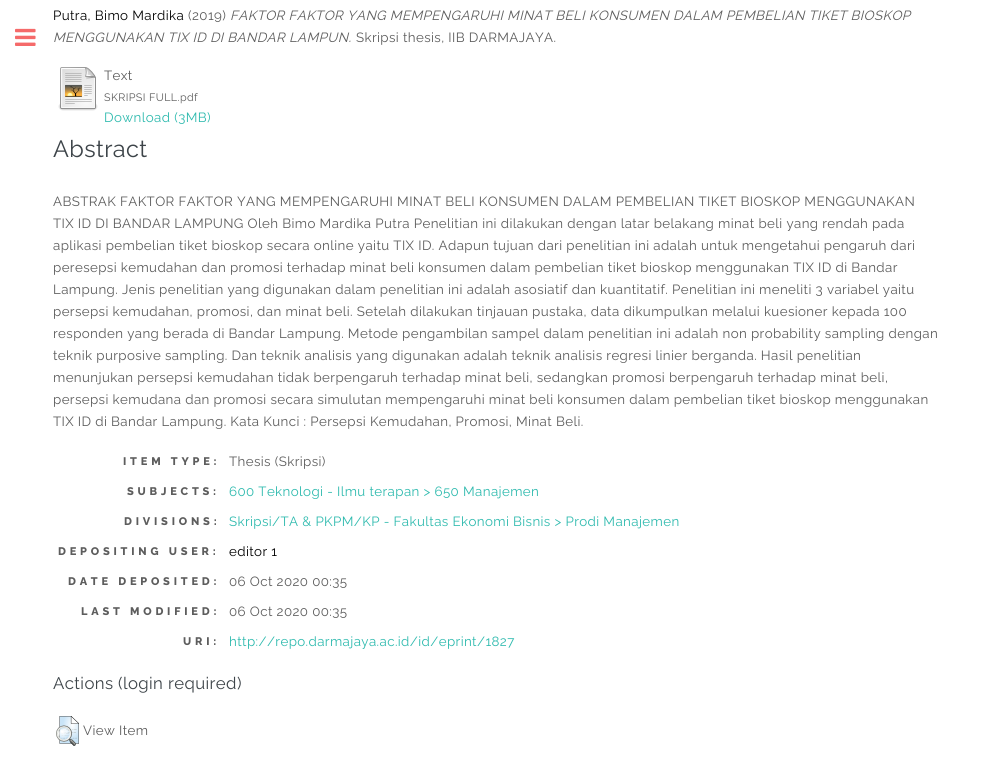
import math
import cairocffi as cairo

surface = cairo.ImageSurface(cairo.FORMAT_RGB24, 993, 771)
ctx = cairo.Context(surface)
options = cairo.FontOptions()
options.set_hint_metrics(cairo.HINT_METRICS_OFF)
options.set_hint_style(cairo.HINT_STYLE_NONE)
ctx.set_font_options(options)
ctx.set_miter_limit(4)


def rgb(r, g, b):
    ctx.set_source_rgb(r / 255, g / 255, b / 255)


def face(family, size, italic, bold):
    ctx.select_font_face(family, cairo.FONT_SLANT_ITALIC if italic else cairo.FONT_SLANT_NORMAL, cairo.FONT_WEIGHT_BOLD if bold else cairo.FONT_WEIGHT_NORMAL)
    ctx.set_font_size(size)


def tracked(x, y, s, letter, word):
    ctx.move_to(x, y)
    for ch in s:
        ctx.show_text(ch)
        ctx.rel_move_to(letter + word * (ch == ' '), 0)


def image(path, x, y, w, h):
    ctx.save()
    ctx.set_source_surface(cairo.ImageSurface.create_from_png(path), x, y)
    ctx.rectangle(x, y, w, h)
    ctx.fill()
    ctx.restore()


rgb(255, 255, 255)
ctx.paint()
image('image0.png', 15, 28, 21, 18)
face('Raleway', 13.33, 0, 0)
rgb(0, 0, 0)
tracked(53, 20, 'Putra, Bimo Mardika', 0.4, 0)
rgb(93, 93, 93)
tracked(188, 20, '(2019)', 0.4, 0)
face('Raleway', 13.33, 1, 0)
tracked(230, 20, 'FAKTOR FAKTOR YANG MEMPENGARUHI MINAT BELI KONSUMEN DALAM PEMBELIAN TIKET BIOSKOP', 0.4, 0)
tracked(53, 42, 'MENGGUNAKAN TIX ID DI BANDAR LAMPUN.', 0.4, 0)
face('Raleway', 13.33, 0, 0)
tracked(356, 42, 'Skripsi thesis, IIB DARMAJAYA.', 0.4, 0)
image('image1.png', 58, 67, 40, 44)
tracked(104, 80, 'Text', 0.4, 0)
face('Raleway', 10.75, 0, 0)
tracked(104, 101, 'SKRIPSI FULL.pdf', 0.4, 0)
face('Raleway', 13.33, 0, 0)
rgb(46, 186, 174)
tracked(104, 122, 'Download (3MB)', 0.4, 0)
face('Raleway', 23.5, 0, 0)
rgb(61, 68, 73)
tracked(53, 157, 'Abstract', 0.4, 0)
face('Raleway', 13.33, 0, 0)
rgb(93, 93, 93)
tracked(53, 206, 'ABSTRAK FAKTOR FAKTOR YANG MEMPENGARUHI MINAT BELI KONSUMEN DALAM PEMBELIAN TIKET BIOSKOP MENGGUNAKAN', 0.4, 0)
tracked(53, 228, 'TIX ID DI BANDAR LAMPUNG Oleh Bimo Mardika Putra Penelitian ini dilakukan dengan latar belakang minat beli yang rendah pada', 0.4, 0)
tracked(53, 250, 'aplikasi pembelian tiket bioskop secara online yaitu TIX ID. Adapun tujuan dari penelitian ini adalah untuk mengetahui pengaruh dari', 0.4, 0)
tracked(53, 272, 'peresepsi kemudahan dan promosi terhadap minat beli konsumen dalam pembelian tiket bioskop menggunakan TIX ID di Bandar', 0.4, 0)
tracked(53, 294, 'Lampung. Jenis penelitian yang digunakan dalam penelitian ini adalah asosiatif dan kuantitatif. Penelitian ini meneliti 3 variabel yaitu', 0.4, 0)
tracked(53, 316, 'persepsi kemudahan, promosi, dan minat beli. Setelah dilakukan tinjauan pustaka, data dikumpulkan melalui kuesioner kepada 100', 0.4, 0)
tracked(53, 338, 'responden yang berada di Bandar Lampung. Metode pengambilan sampel dalam penelitian ini adalah non probability sampling dengan', 0.4, 0)
tracked(53, 360, 'teknik purposive sampling. Dan teknik analisis yang digunakan adalah teknik analisis regresi linier berganda. Hasil penelitian', 0.4, 0)
tracked(53, 382, 'menunjukan persepsi kemudahan tidak berpengaruh terhadap minat beli, sedangkan promosi berpengaruh terhadap minat beli,', 0.4, 0)
tracked(53, 404, 'persepsi kemudana dan promosi secara simulutan mempengaruhi minat beli konsumen dalam pembelian tiket bioskop menggunakan', 0.4, 0)
tracked(53, 426, 'TIX ID di Bandar Lampung. Kata Kunci : Persepsi Kemudahan, Promosi, Minat Beli.', 0.4, 0)
face('Raleway ExtraBold', 11, 0, 0)
tracked(123, 465, 'ITEM TYPE:', 3.8, 0)
face('Raleway', 13.33, 0, 0)
tracked(229, 466, 'Thesis (Skripsi)', 0.4, 0)
face('Raleway ExtraBold', 11, 0, 0)
tracked(127, 495, 'SUBJECTS:', 3.8, 0)
face('Raleway', 13.33, 0, 0)
rgb(46, 186, 174)
tracked(229, 496, '600 Teknologi - Ilmu terapan > 650 Manajemen', 0.4, 0)
face('Raleway ExtraBold', 11, 0, 0)
rgb(93, 93, 93)
tracked(124, 525, 'DIVISIONS:', 3.8, 0)
face('Raleway', 13.33, 0, 0)
rgb(46, 186, 174)
tracked(229, 526, 'Skripsi/TA & PKPM/KP - Fakultas Ekonomi Bisnis > Prodi Manajemen', 0.4, 0)
face('Raleway ExtraBold', 11, 0, 0)
rgb(93, 93, 93)
tracked(58, 555, 'DEPOSITING USER:', 3.8, 0)
face('Raleway', 13.33, 0, 0)
rgb(0, 0, 0)
tracked(229, 556, 'editor 1', 0.4, 0)
face('Raleway ExtraBold', 11, 0, 0)
rgb(93, 93, 93)
tracked(68, 585, 'DATE DEPOSITED:', 3.8, 0)
face('Raleway', 13.33, 0, 0)
tracked(229, 586, '06 Oct 2020 00:35', 0.4, 0)
face('Raleway ExtraBold', 11, 0, 0)
tracked(81, 615, 'LAST MODIFIED:', 3.8, 0)
face('Raleway', 13.33, 0, 0)
tracked(229, 616, '06 Oct 2020 00:35', 0.4, 0)
face('Raleway ExtraBold', 11, 0, 0)
tracked(183, 645, 'URI:', 3.8, 0)
face('Raleway', 13.33, 0, 0)
rgb(46, 186, 174)
tracked(229, 646, 'http://repo.darmajaya.ac.id/id/eprint/1827', 0.4, 0)
face('Raleway', 16.75, 0, 0)
rgb(61, 68, 73)
tracked(53, 689, 'Actions (login required)', 0.4, 0)
image('image2.png', 56, 716, 23, 30)
face('Raleway', 13.33, 0, 0)
rgb(93, 93, 93)
tracked(83, 735, 'View Item', 0.4, 0)
surface.write_to_png('render.png')
